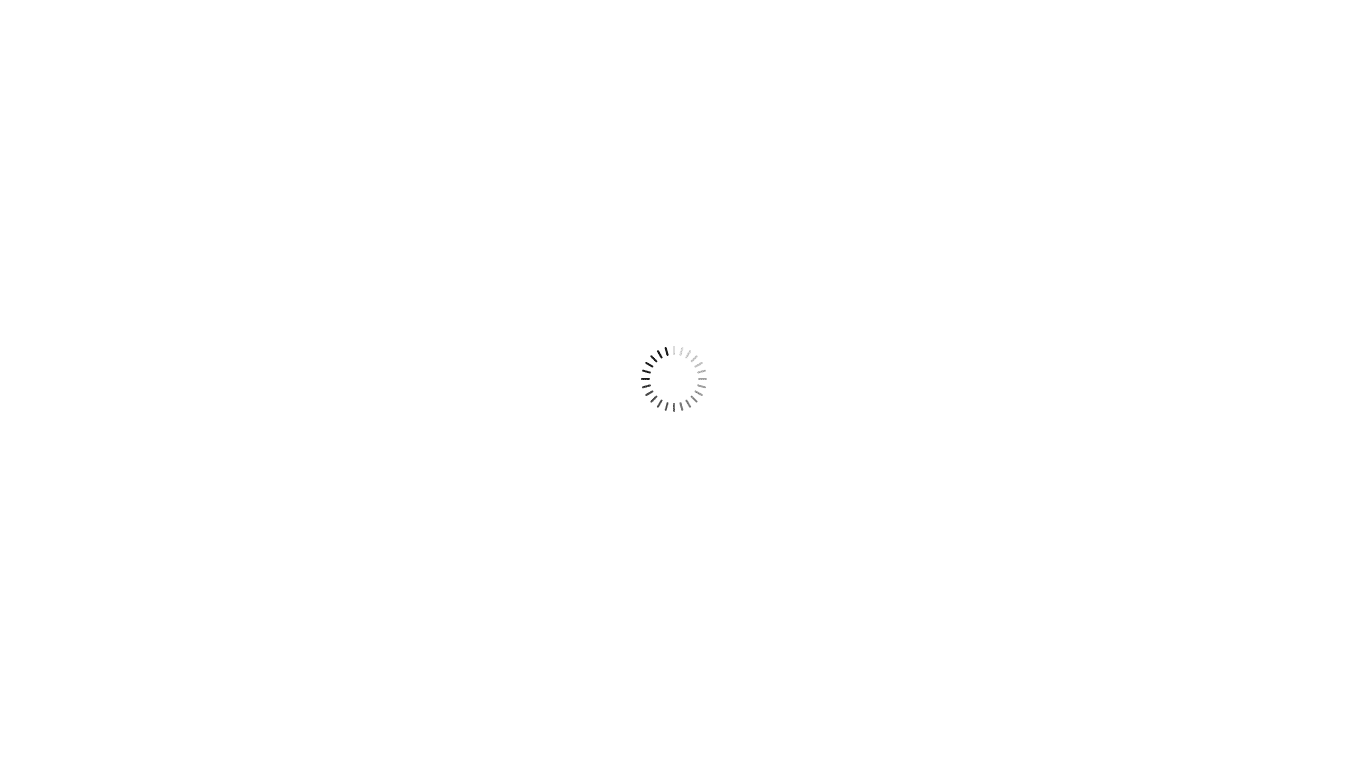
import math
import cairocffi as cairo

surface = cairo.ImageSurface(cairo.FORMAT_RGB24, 1348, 758)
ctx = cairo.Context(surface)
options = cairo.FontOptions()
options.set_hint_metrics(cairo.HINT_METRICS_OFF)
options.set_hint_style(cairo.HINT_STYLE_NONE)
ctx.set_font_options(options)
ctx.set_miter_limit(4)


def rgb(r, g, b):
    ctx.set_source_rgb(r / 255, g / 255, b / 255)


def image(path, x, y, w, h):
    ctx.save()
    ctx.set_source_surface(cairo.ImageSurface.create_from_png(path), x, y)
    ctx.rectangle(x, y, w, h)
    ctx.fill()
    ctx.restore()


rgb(255, 255, 255)
ctx.paint()
image('image0.png', 641, 346, 66, 66)
surface.write_to_png('render.png')
